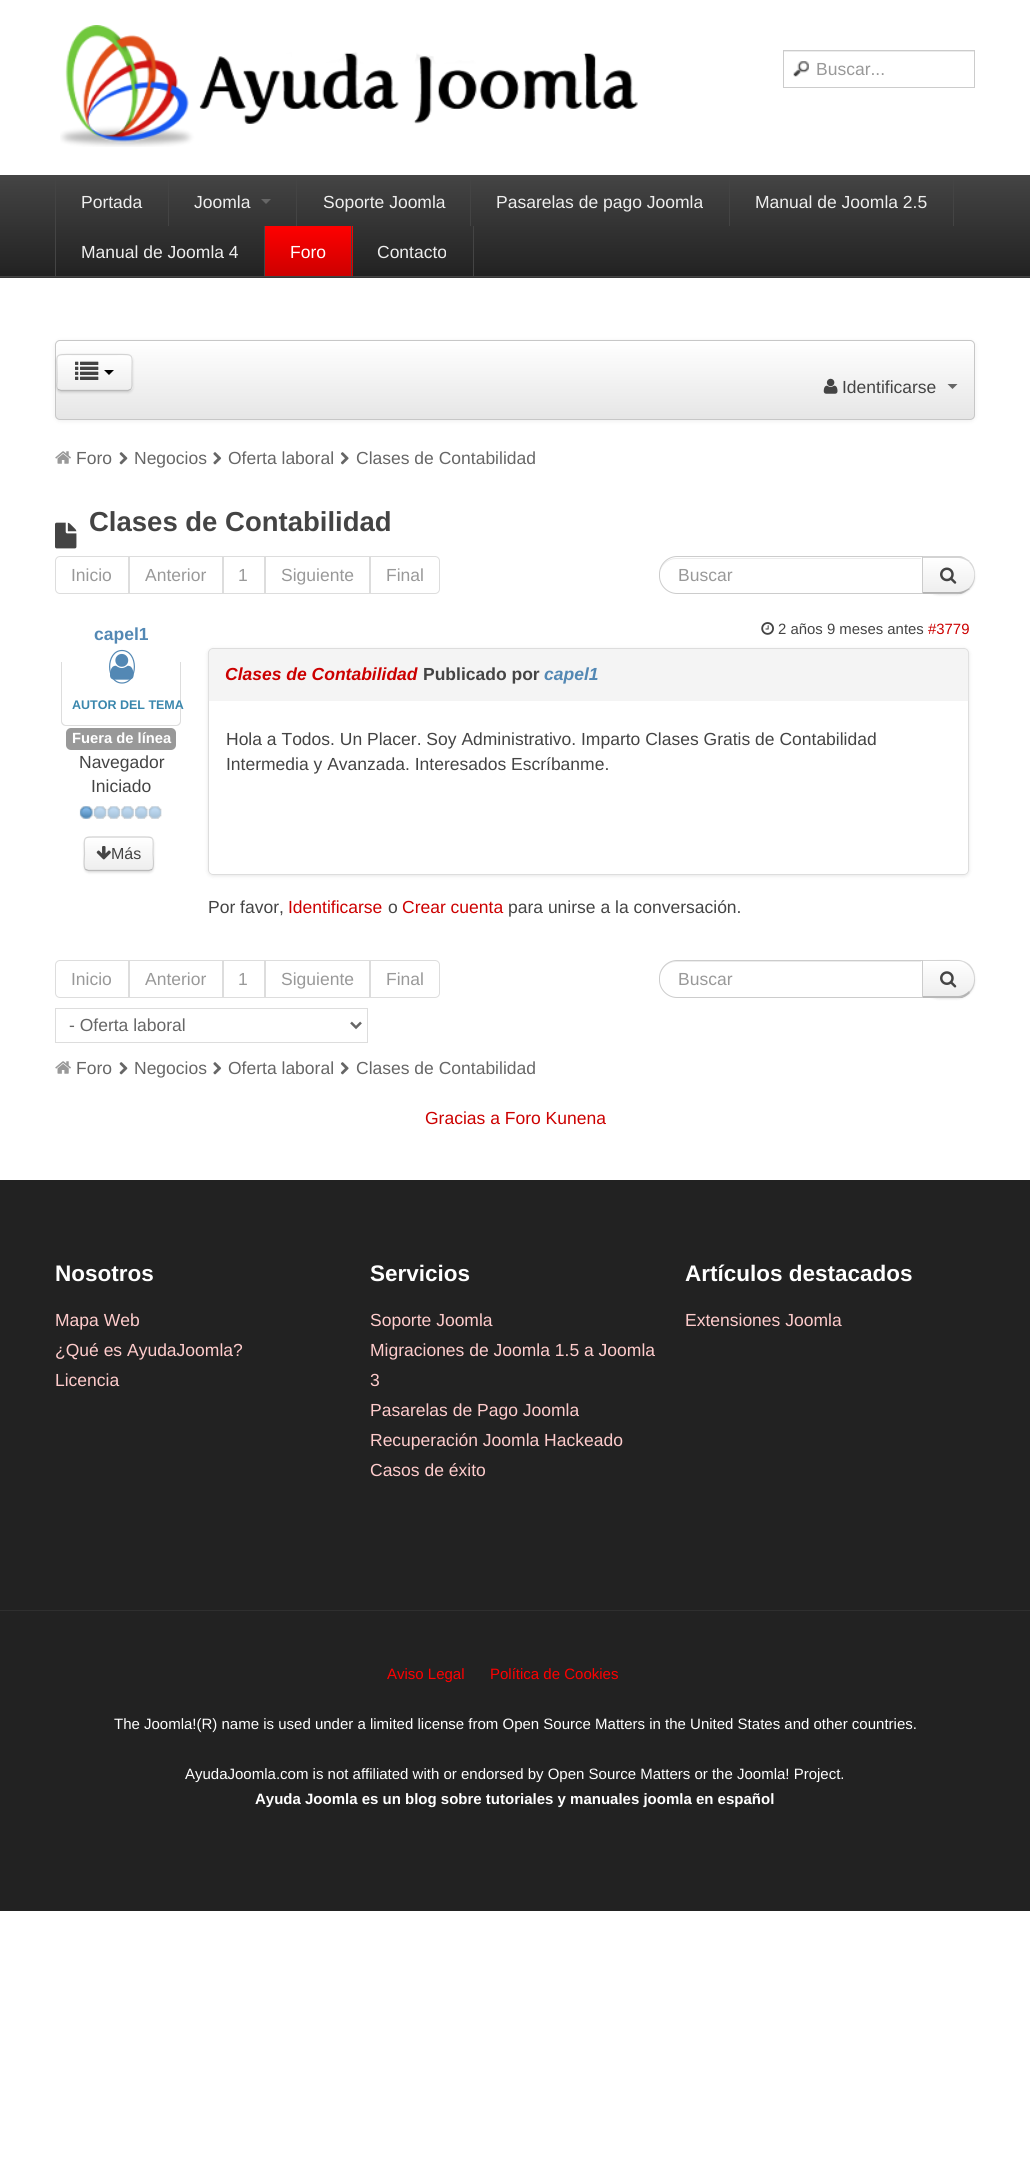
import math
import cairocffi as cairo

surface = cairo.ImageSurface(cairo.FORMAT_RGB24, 1030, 2173)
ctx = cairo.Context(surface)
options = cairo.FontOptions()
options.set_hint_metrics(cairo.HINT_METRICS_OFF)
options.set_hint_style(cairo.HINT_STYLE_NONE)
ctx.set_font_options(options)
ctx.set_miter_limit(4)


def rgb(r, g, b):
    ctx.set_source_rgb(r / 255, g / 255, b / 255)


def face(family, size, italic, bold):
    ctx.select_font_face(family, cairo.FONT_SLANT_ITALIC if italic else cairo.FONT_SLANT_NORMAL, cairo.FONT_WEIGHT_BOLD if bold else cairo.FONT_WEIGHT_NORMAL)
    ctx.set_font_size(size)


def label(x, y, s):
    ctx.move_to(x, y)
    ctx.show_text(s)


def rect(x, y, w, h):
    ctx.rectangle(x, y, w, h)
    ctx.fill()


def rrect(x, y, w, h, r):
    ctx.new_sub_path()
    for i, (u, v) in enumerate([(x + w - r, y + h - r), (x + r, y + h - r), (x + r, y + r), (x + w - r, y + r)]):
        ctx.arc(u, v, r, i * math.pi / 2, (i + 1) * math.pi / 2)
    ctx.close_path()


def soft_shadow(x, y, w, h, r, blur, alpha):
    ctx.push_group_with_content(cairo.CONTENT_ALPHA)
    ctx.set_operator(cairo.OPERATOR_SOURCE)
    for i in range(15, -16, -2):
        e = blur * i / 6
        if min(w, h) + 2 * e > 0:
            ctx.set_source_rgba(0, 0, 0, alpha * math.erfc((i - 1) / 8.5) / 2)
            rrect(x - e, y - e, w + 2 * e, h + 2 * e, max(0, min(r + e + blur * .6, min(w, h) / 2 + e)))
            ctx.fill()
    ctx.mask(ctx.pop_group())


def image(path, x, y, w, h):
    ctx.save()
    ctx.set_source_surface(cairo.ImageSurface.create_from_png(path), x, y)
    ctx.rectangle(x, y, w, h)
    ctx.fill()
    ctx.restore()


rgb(255, 255, 255)
ctx.paint()
image('image0.png', 60, 25, 578, 122)
image('image1.png', 793, 61, 16, 16)
rgb(236, 236, 236)
rect(784, 51, 190, 1)
ctx.rectangle(783.5, 50.5, 191, 37)
rgb(204, 204, 204)
ctx.set_line_width(1)
ctx.stroke()
face('Liberation Sans', 17.5, 0, 0)
rgb(153, 153, 153)
label(816, 75, 'Buscar...')
rgb(54, 54, 54)
rect(0, 277, 1030, 1)
gradient = cairo.LinearGradient(515, 176, 515, 276)
gradient.add_color_stop_rgba(0, 0.267, 0.267, 0.267, 1)
gradient.add_color_stop_rgba(1, 0.133, 0.133, 0.133, 1)
ctx.set_source(gradient)
rect(0, 176, 1030, 100)
rgb(68, 68, 68)
rect(0, 175, 1030, 1)
rect(0, 276, 1030, 1)
rect(55, 176, 1, 100)
rect(168, 176, 1, 50)
rgb(238, 238, 238)
label(81, 208, 'Portada')
rgb(68, 68, 68)
rect(296, 176, 1, 50)
rgb(238, 238, 238)
label(194, 208, 'Joomla')
rgb(102, 102, 102)
ctx.new_path()
ctx.move_to(261, 199)
ctx.line_to(271, 199)
ctx.line_to(266, 204)
ctx.close_path()
ctx.fill()
rgb(68, 68, 68)
rect(470, 176, 1, 50)
rgb(238, 238, 238)
label(323, 208, 'Soporte Joomla')
rgb(68, 68, 68)
rect(729, 176, 1, 50)
rgb(238, 238, 238)
label(496, 208, 'Pasarelas de pago Joomla')
rgb(68, 68, 68)
rect(953, 176, 1, 50)
rgb(238, 238, 238)
label(755, 208, 'Manual de Joomla 2.5')
rgb(68, 68, 68)
rect(264, 226, 1, 50)
rgb(238, 238, 238)
label(81, 258, 'Manual de Joomla 4')
gradient = cairo.LinearGradient(308, 226, 308, 276)
gradient.add_color_stop_rgba(0, 1, 0, 0, 1)
gradient.add_color_stop_rgba(1, 0.8, 0, 0, 1)
ctx.set_source(gradient)
rect(265, 226, 88, 50)
rgb(68, 68, 68)
rect(351, 226, 1, 50)
rgb(255, 255, 255)
label(290, 258, 'Foro')
rgb(68, 68, 68)
rect(473, 226, 1, 50)
rgb(238, 238, 238)
label(377, 258, 'Contacto')
rgb(0, 0, 0)
soft_shadow(55, 341, 920, 80, 5, 2.5, 0.07)
ctx.save()
rrect(55, 340, 920, 80, 5)
ctx.clip()
gradient = cairo.LinearGradient(515, 341, 515, 419)
gradient.add_color_stop_rgba(0, 1, 1, 1, 1)
gradient.add_color_stop_rgba(1, 0.902, 0.902, 0.902, 1)
ctx.set_source(gradient)
rect(55, 341, 920, 78)
ctx.restore()
rrect(55.5, 340.5, 919, 79, 4.5)
rgb(199, 199, 199)
ctx.stroke()
rgb(0, 0, 0)
soft_shadow(56, 355, 77, 38, 5, 1, 0.1)
rgb(248, 248, 248)
rrect(56, 354, 77, 37, 5)
ctx.fill()
ctx.save()
rrect(56, 354, 77, 37, 5)
ctx.clip()
gradient = cairo.LinearGradient(94, 355, 94, 390)
gradient.add_color_stop_rgba(0, 1, 1, 1, 1)
gradient.add_color_stop_rgba(1, 0.933, 0.933, 0.933, 1)
ctx.set_source(gradient)
rect(56, 355, 77, 35)
ctx.restore()
ctx.new_path()
ctx.move_to(130.5, 389.5)
ctx.line_to(128, 390.5)
ctx.line_to(61, 390.5)
ctx.line_to(58, 389.5)
ctx.set_source_rgba(0, 0, 0, 0.25)
ctx.set_line_width(1.2)
ctx.stroke()
ctx.new_path()
ctx.move_to(58, 389.5)
ctx.curve_to(56, 387.5, 57, 384, 57, 381.5)
ctx.line_to(57, 372.5)
ctx.curve_to(57, 353.5, 53.5, 354.5, 72.5, 354.5)
ctx.line_to(116.5, 354.5)
ctx.curve_to(135, 354.5, 132, 353.5, 132, 372.5)
ctx.line_to(132, 381.5)
ctx.curve_to(132, 384, 132.5, 387.5, 130.5, 389.5)
ctx.set_source_rgba(0, 0, 0, 0.15)
ctx.stroke()
image('image2.png', 75, 361, 24, 19)
rgb(0, 0, 0)
ctx.new_path()
ctx.move_to(104, 370)
ctx.line_to(114, 370)
ctx.line_to(109, 375)
ctx.close_path()
ctx.fill()
image('image3.png', 823, 378, 15, 16)
rgb(68, 68, 68)
label(842, 393, 'Identificarse')
rgb(102, 102, 102)
ctx.new_path()
ctx.move_to(947.5, 384)
ctx.line_to(957.5, 384)
ctx.line_to(952.5, 389)
ctx.close_path()
ctx.fill()
image('image4.png', 55, 451, 16, 13)
label(76, 464, 'Foro')
image('image5.png', 119, 452, 9, 13)
label(134, 464, 'Negocios')
image('image6.png', 213, 452, 9, 13)
label(228, 464, 'Oferta laboral')
image('image7.png', 340, 452, 9, 13)
label(356, 464, 'Clases de Contabilidad')
image('image8.png', 55, 522, 22, 27)
face('Liberation Sans', 27.5, 0, 1)
rgb(68, 68, 68)
label(89, 531, 'Clases de Contabilidad')
ctx.new_path()
ctx.move_to(60, 556.5)
ctx.line_to(128.5, 556.5)
ctx.line_to(128.5, 593.5)
ctx.line_to(60, 593.5)
ctx.curve_to(57.5, 593.5, 55.5, 591.5, 55.5, 589)
ctx.line_to(55.5, 561)
ctx.curve_to(55.5, 558.5, 57.5, 556.5, 60, 556.5)
ctx.close_path()
rgb(221, 221, 221)
ctx.set_line_width(1)
ctx.stroke()
face('Liberation Sans', 17.5, 0, 0)
rgb(153, 153, 153)
label(71, 581, 'Inicio')
ctx.rectangle(129.5, 556.5, 93, 37)
rgb(221, 221, 221)
ctx.stroke()
rgb(153, 153, 153)
label(145, 581, 'Anterior')
ctx.rectangle(223.5, 556.5, 41, 37)
rgb(221, 221, 221)
ctx.stroke()
rgb(153, 153, 153)
label(238, 581, '1')
ctx.rectangle(265.5, 556.5, 104, 37)
rgb(221, 221, 221)
ctx.stroke()
rgb(153, 153, 153)
label(281, 581, 'Siguiente')
ctx.new_path()
ctx.move_to(370.5, 556.5)
ctx.line_to(435, 556.5)
ctx.curve_to(437.5, 556.5, 439.5, 558.5, 439.5, 561)
ctx.line_to(439.5, 589)
ctx.curve_to(439.5, 591.5, 437.5, 593.5, 435, 593.5)
ctx.line_to(370.5, 593.5)
ctx.close_path()
rgb(221, 221, 221)
ctx.stroke()
rgb(153, 153, 153)
label(386, 581, 'Final')
rgb(0, 0, 0)
soft_shadow(921, 558, 54, 37, 18, 1, 0.1)
rgb(248, 248, 248)
ctx.new_path()
ctx.move_to(921, 556)
ctx.line_to(957, 556)
ctx.curve_to(967, 556, 975, 564, 975, 574)
ctx.line_to(975, 576)
ctx.curve_to(975, 586, 967, 594, 957, 594)
ctx.line_to(921, 594)
ctx.close_path()
ctx.fill()
ctx.save()
ctx.new_path()
ctx.move_to(921, 556)
ctx.line_to(957, 556)
ctx.curve_to(967, 556, 975, 564, 975, 574)
ctx.line_to(975, 576)
ctx.curve_to(975, 586, 967, 594, 957, 594)
ctx.line_to(921, 594)
ctx.close_path()
ctx.clip()
gradient = cairo.LinearGradient(948, 558, 948, 593)
gradient.add_color_stop_rgba(0, 1, 1, 1, 1)
gradient.add_color_stop_rgba(1, 0.933, 0.933, 0.933, 1)
ctx.set_source(gradient)
rect(923, 558, 52, 35)
ctx.restore()
ctx.set_source_rgba(0, 0, 0, 0.15)
ctx.new_path()
ctx.move_to(921, 556)
ctx.line_to(961, 556)
ctx.curve_to(964, 557, 967, 559, 970, 561)
ctx.line_to(969, 562)
ctx.curve_to(966, 560, 962, 558, 958, 558)
ctx.line_to(923, 558)
ctx.close_path()
ctx.fill()
ctx.new_path()
ctx.move_to(975, 576)
ctx.curve_to(975, 570.5, 974, 565.5, 970, 561.5)
ctx.line_to(969, 562.5)
ctx.curve_to(976, 569, 976, 581, 969, 587.5)
ctx.line_to(970, 588.5)
ctx.curve_to(973, 585.5, 975, 581, 975, 576)
ctx.close_path()
ctx.fill()
ctx.set_source_rgba(0, 0, 0, 0.25)
ctx.new_path()
ctx.move_to(970, 589)
ctx.curve_to(967, 591, 964, 593, 961, 594)
ctx.line_to(921, 594)
ctx.line_to(923, 592)
ctx.line_to(958, 592)
ctx.curve_to(962, 592, 966, 590, 969, 588)
ctx.close_path()
ctx.fill()
rgb(255, 255, 255)
ctx.new_path()
ctx.move_to(677, 556)
ctx.line_to(923, 556)
ctx.line_to(923, 594)
ctx.line_to(677, 594)
ctx.curve_to(667, 594, 659, 586, 659, 576)
ctx.line_to(659, 574)
ctx.curve_to(659, 564, 667, 556, 677, 556)
ctx.close_path()
ctx.fill()
rgb(236, 236, 236)
ctx.new_path()
ctx.move_to(676, 559)
ctx.line_to(921, 559)
ctx.line_to(921, 558)
ctx.line_to(676, 558)
ctx.curve_to(668, 558, 661, 564, 660, 572)
ctx.curve_to(662, 565, 668, 559, 676, 559)
ctx.close_path()
ctx.fill()
ctx.new_path()
ctx.move_to(677, 556.5)
ctx.line_to(922.5, 556.5)
ctx.line_to(922.5, 593.5)
ctx.line_to(677, 593.5)
ctx.curve_to(667.5, 593.5, 659.5, 585.5, 659.5, 576)
ctx.line_to(659.5, 574)
ctx.curve_to(659.5, 564.5, 667.5, 556.5, 677, 556.5)
ctx.close_path()
rgb(204, 204, 204)
ctx.stroke()
rgb(153, 153, 153)
label(678, 581, 'Buscar')
image('image9.png', 940, 567, 17, 17)
face('Liberation Sans', 17.5, 0, 1)
rgb(83, 136, 180)
label(94, 640, 'capel1')
ctx.new_path()
ctx.move_to(122, 650.5)
ctx.curve_to(138.5, 650.5, 138.5, 683, 122, 683)
ctx.curve_to(105.5, 683, 105.5, 650.5, 122, 650.5)
ctx.close_path()
ctx.set_line_width(1.2)
ctx.stroke()
image('image10.png', 110, 653, 24, 27)
rgb(221, 221, 221)
ctx.set_fill_rule(cairo.FILL_RULE_EVEN_ODD)
ctx.new_path()
ctx.move_to(61, 662)
ctx.line_to(181, 662)
ctx.line_to(181, 721)
ctx.curve_to(181, 724, 179, 726, 176, 726)
ctx.line_to(66, 726)
ctx.curve_to(63, 726, 61, 724, 61, 721)
ctx.close_path()
ctx.move_to(62, 662)
ctx.line_to(180, 662)
ctx.line_to(180, 721)
ctx.curve_to(180, 723, 178, 725, 176, 725)
ctx.line_to(66, 725)
ctx.curve_to(64, 725, 62, 723, 62, 721)
ctx.close_path()
ctx.fill()
face('Liberation Sans', 12.5, 0, 1)
rgb(58, 135, 173)
label(72, 709, 'AUTOR DEL TEMA')
rgb(153, 153, 153)
rrect(66, 728, 110, 22, 5)
ctx.fill()
face('Liberation Sans', 14.75, 0, 1)
rgb(255, 255, 255)
label(72, 743, 'Fuera de línea')
face('Liberation Sans', 17.5, 0, 0)
rgb(68, 68, 68)
label(79, 768, 'Navegador')
label(91, 792, 'Iniciado')
image('image11.png', 79, 806, 83, 13)
rgb(0, 0, 0)
soft_shadow(84, 838, 70, 35, 5, 1, 0.1)
rgb(248, 248, 248)
rrect(84, 836, 70, 35, 5)
ctx.fill()
ctx.save()
ctx.set_fill_rule(cairo.FILL_RULE_WINDING)
rrect(84, 836, 70, 35, 5)
ctx.clip()
gradient = cairo.LinearGradient(119, 838, 119, 870)
gradient.add_color_stop_rgba(0, 1, 1, 1, 1)
gradient.add_color_stop_rgba(1, 0.933, 0.933, 0.933, 1)
ctx.set_source(gradient)
rect(84, 838, 70, 32)
ctx.restore()
ctx.set_source_rgba(1, 1, 1, 0.2)
ctx.set_fill_rule(cairo.FILL_RULE_WINDING)
ctx.new_path()
ctx.move_to(89, 839)
ctx.line_to(139, 839)
ctx.curve_to(154, 839, 152, 837, 152, 851)
ctx.line_to(152, 869)
ctx.curve_to(153, 868, 153, 867, 153, 866)
ctx.line_to(153, 842)
ctx.curve_to(153, 840, 151, 838, 149, 838)
ctx.line_to(89, 838)
ctx.curve_to(87, 838, 85, 840, 85, 842)
ctx.curve_to(85, 840, 87, 839, 89, 839)
ctx.close_path()
ctx.fill()
ctx.new_path()
ctx.move_to(152, 869.5)
ctx.line_to(149, 870.5)
ctx.line_to(88.5, 870.5)
ctx.line_to(85.5, 869.5)
ctx.set_source_rgba(0, 0, 0, 0.25)
ctx.stroke()
ctx.new_path()
ctx.move_to(85.5, 869.5)
ctx.curve_to(83, 867, 84.5, 857, 84.5, 854)
ctx.curve_to(84.5, 836, 81.5, 837, 99, 837)
ctx.line_to(139, 837)
ctx.curve_to(156, 837, 153, 836, 153, 854)
ctx.curve_to(153, 857, 154.5, 867, 152, 869.5)
ctx.set_source_rgba(0, 0, 0, 0.15)
ctx.stroke()
image('image12.png', 96, 846, 15, 14)
face('Liberation Sans', 16, 0, 0)
rgb(68, 68, 68)
label(111, 859, 'Más')
image('image13.png', 761, 622, 13, 13)
face('Liberation Sans', 14.9, 0, 0)
label(778, 634, '2 años 9 meses antes')
rgb(204, 0, 0)
label(928, 634, '#3779')
ctx.save()
ctx.set_fill_rule(cairo.FILL_RULE_EVEN_ODD)
ctx.new_path()
ctx.move_to(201, 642)
ctx.line_to(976, 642)
ctx.line_to(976, 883)
ctx.line_to(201, 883)
ctx.close_path()
ctx.move_to(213, 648)
ctx.line_to(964, 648)
ctx.curve_to(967, 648, 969, 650, 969, 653)
ctx.line_to(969, 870)
ctx.curve_to(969, 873, 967, 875, 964, 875)
ctx.line_to(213, 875)
ctx.curve_to(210, 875, 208, 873, 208, 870)
ctx.line_to(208, 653)
ctx.curve_to(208, 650, 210, 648, 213, 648)
ctx.close_path()
ctx.clip()
rgb(0, 0, 0)
soft_shadow(208, 649, 761, 227, 5, 2, 0.1)
ctx.restore()
rrect(208.5, 648.5, 760, 226, 4.5)
rgb(221, 221, 221)
ctx.set_line_width(1)
ctx.stroke()
ctx.set_source_rgba(0.898, 0.898, 0.898, 0.4)
ctx.new_path()
ctx.move_to(213, 649)
ctx.line_to(964, 649)
ctx.curve_to(967, 649, 969, 651, 969, 654)
ctx.line_to(969, 701)
ctx.line_to(208, 701)
ctx.line_to(208, 654)
ctx.curve_to(208, 651, 210, 649, 213, 649)
ctx.close_path()
ctx.fill()
face('Liberation Sans', 17.5, 1, 1)
rgb(204, 0, 0)
label(225, 680, 'Clases de Contabilidad')
face('Liberation Sans', 17.5, 0, 1)
rgb(68, 68, 68)
label(423, 680, 'Publicado por')
face('Liberation Sans', 17.5, 1, 1)
rgb(83, 136, 180)
label(544, 680, 'capel1')
face('Liberation Sans', 17.5, 0, 0)
rgb(68, 68, 68)
label(226, 745, 'Hola a Todos. Un Placer. Soy Administrativo. Imparto Clases Gratis de Contabilidad')
label(226, 770, 'Intermedia y Avanzada. Interesados Escríbanme.')
label(208, 913, 'Por favor,')
rgb(204, 0, 0)
label(288, 913, 'Identificarse')
rgb(68, 68, 68)
label(388, 913, 'o')
rgb(204, 0, 0)
label(402, 913, 'Crear cuenta')
rgb(68, 68, 68)
label(508, 913, 'para unirse a la conversación.')
ctx.new_path()
ctx.move_to(60, 960.5)
ctx.line_to(128.5, 960.5)
ctx.line_to(128.5, 997.5)
ctx.line_to(60, 997.5)
ctx.curve_to(57.5, 997.5, 55.5, 995.5, 55.5, 993)
ctx.line_to(55.5, 965)
ctx.curve_to(55.5, 962.5, 57.5, 960.5, 60, 960.5)
ctx.close_path()
rgb(221, 221, 221)
ctx.stroke()
rgb(153, 153, 153)
label(71, 985, 'Inicio')
ctx.rectangle(129.5, 960.5, 93, 37)
rgb(221, 221, 221)
ctx.stroke()
rgb(153, 153, 153)
label(145, 985, 'Anterior')
ctx.rectangle(223.5, 960.5, 41, 37)
rgb(221, 221, 221)
ctx.stroke()
rgb(153, 153, 153)
label(238, 985, '1')
ctx.rectangle(265.5, 960.5, 104, 37)
rgb(221, 221, 221)
ctx.stroke()
rgb(153, 153, 153)
label(281, 985, 'Siguiente')
ctx.new_path()
ctx.move_to(370.5, 960.5)
ctx.line_to(435, 960.5)
ctx.curve_to(437.5, 960.5, 439.5, 962.5, 439.5, 965)
ctx.line_to(439.5, 993)
ctx.curve_to(439.5, 995.5, 437.5, 997.5, 435, 997.5)
ctx.line_to(370.5, 997.5)
ctx.close_path()
rgb(221, 221, 221)
ctx.stroke()
rgb(153, 153, 153)
label(386, 985, 'Final')
rgb(0, 0, 0)
soft_shadow(921, 961, 54, 38, 18, 1, 0.1)
rgb(248, 248, 248)
ctx.new_path()
ctx.move_to(921, 960)
ctx.line_to(957, 960)
ctx.curve_to(967, 960, 975, 968, 975, 978)
ctx.line_to(975, 980)
ctx.curve_to(975, 990, 967, 998, 957, 998)
ctx.line_to(921, 998)
ctx.close_path()
ctx.fill()
ctx.save()
ctx.new_path()
ctx.move_to(921, 960)
ctx.line_to(957, 960)
ctx.curve_to(967, 960, 975, 968, 975, 978)
ctx.line_to(975, 980)
ctx.curve_to(975, 990, 967, 998, 957, 998)
ctx.line_to(921, 998)
ctx.close_path()
ctx.clip()
gradient = cairo.LinearGradient(948, 961, 948, 996)
gradient.add_color_stop_rgba(0, 1, 1, 1, 1)
gradient.add_color_stop_rgba(1, 0.933, 0.933, 0.933, 1)
ctx.set_source(gradient)
rect(923, 961, 52, 35)
ctx.restore()
ctx.set_source_rgba(0, 0, 0, 0.15)
ctx.new_path()
ctx.move_to(921, 960)
ctx.line_to(922, 961)
ctx.line_to(958, 961)
ctx.curve_to(962, 961, 966, 963, 969, 966)
ctx.line_to(970, 965)
ctx.curve_to(967, 962, 962, 960, 958, 960)
ctx.close_path()
ctx.fill()
ctx.new_path()
ctx.move_to(975, 980)
ctx.curve_to(975, 974.5, 974, 969.5, 970, 965)
ctx.line_to(969, 966)
ctx.curve_to(975.5, 973, 976, 984.5, 969, 991.5)
ctx.line_to(970, 992.5)
ctx.curve_to(973, 989.5, 975, 985, 975, 980)
ctx.close_path()
ctx.fill()
ctx.set_source_rgba(0, 0, 0, 0.25)
ctx.new_path()
ctx.move_to(970, 993)
ctx.curve_to(968, 995, 965, 997, 962, 998)
ctx.line_to(921, 998)
ctx.line_to(923, 996)
ctx.line_to(958, 996)
ctx.curve_to(962, 996, 966, 994, 969, 991)
ctx.close_path()
ctx.fill()
rgb(255, 255, 255)
ctx.new_path()
ctx.move_to(677, 960)
ctx.line_to(923, 960)
ctx.line_to(923, 998)
ctx.line_to(677, 998)
ctx.curve_to(667, 998, 659, 990, 659, 980)
ctx.line_to(659, 978)
ctx.curve_to(659, 968, 667, 960, 677, 960)
ctx.close_path()
ctx.fill()
rgb(236, 236, 236)
ctx.new_path()
ctx.move_to(676, 962)
ctx.line_to(921, 962)
ctx.line_to(921, 961)
ctx.line_to(676, 961)
ctx.curve_to(668, 961, 661, 967, 660, 975)
ctx.curve_to(662, 968, 668, 962, 676, 962)
ctx.close_path()
ctx.fill()
ctx.new_path()
ctx.move_to(677, 960.5)
ctx.line_to(922.5, 960.5)
ctx.line_to(922.5, 997.5)
ctx.line_to(677, 997.5)
ctx.curve_to(667.5, 997.5, 659.5, 989.5, 659.5, 980)
ctx.line_to(659.5, 978)
ctx.curve_to(659.5, 968.5, 667.5, 960.5, 677, 960.5)
ctx.close_path()
rgb(204, 204, 204)
ctx.stroke()
rgb(153, 153, 153)
label(678, 985, 'Buscar')
image('image14.png', 940, 971, 17, 17)
ctx.rectangle(55.5, 1008.5, 312, 34)
rgb(221, 221, 221)
ctx.stroke()
ctx.new_path()
ctx.move_to(351, 1022.5)
ctx.line_to(356, 1027.5)
ctx.line_to(361, 1022.5)
rgb(102, 102, 102)
ctx.set_line_width(2.5)
ctx.stroke()
label(69, 1031, '- Oferta laboral')
image('image4.png', 55, 1061, 16, 13)
label(76, 1074, 'Foro')
image('image5.png', 119, 1062, 9, 13)
label(134, 1074, 'Negocios')
image('image6.png', 213, 1062, 9, 13)
label(228, 1074, 'Oferta laboral')
image('image7.png', 340, 1062, 9, 13)
label(356, 1074, 'Clases de Contabilidad')
rgb(204, 0, 0)
label(425, 1124, 'Gracias a Foro Kunena')
rgb(34, 34, 34)
rect(0, 1180, 1030, 731)
face('Liberation Sans', 22.5, 0, 1)
rgb(255, 255, 255)
label(55, 1281, 'Nosotros')
face('Liberation Sans', 17.5, 0, 0)
rgb(255, 204, 204)
label(55, 1326, 'Mapa Web')
label(55, 1356, '¿Qué es AyudaJoomla?')
label(55, 1386, 'Licencia')
face('Liberation Sans', 22.5, 0, 1)
rgb(255, 255, 255)
label(370, 1281, 'Servicios')
face('Liberation Sans', 17.5, 0, 0)
rgb(255, 204, 204)
label(370, 1326, 'Soporte Joomla')
label(370, 1356, 'Migraciones de Joomla 1.5 a Joomla')
label(370, 1386, '3')
label(370, 1416, 'Pasarelas de Pago Joomla')
label(370, 1446, 'Recuperación Joomla Hackeado')
label(370, 1476, 'Casos de éxito')
face('Liberation Sans', 22.5, 0, 1)
rgb(255, 255, 255)
label(685, 1281, 'Artículos destacados')
face('Liberation Sans', 17.5, 0, 0)
rgb(255, 204, 204)
label(685, 1326, 'Extensiones Joomla')
rgb(47, 47, 47)
rect(0, 1610, 1030, 1)
face('Liberation Sans', 15, 0, 0)
rgb(255, 0, 0)
label(387, 1679, 'Aviso Legal')
label(490, 1679, 'Política de Cookies')
rgb(255, 255, 255)
label(114, 1729, 'The Joomla!(R) name is used under a limited license from Open Source Matters in the United States and other countries.')
label(185, 1779, 'AyudaJoomla.com is not affiliated with or endorsed by Open Source Matters or the Joomla! Project.')
face('Liberation Sans', 15, 0, 1)
label(255, 1804, 'Ayuda Joomla es un blog sobre tutoriales y manuales joomla en español')
surface.write_to_png('render.png')
